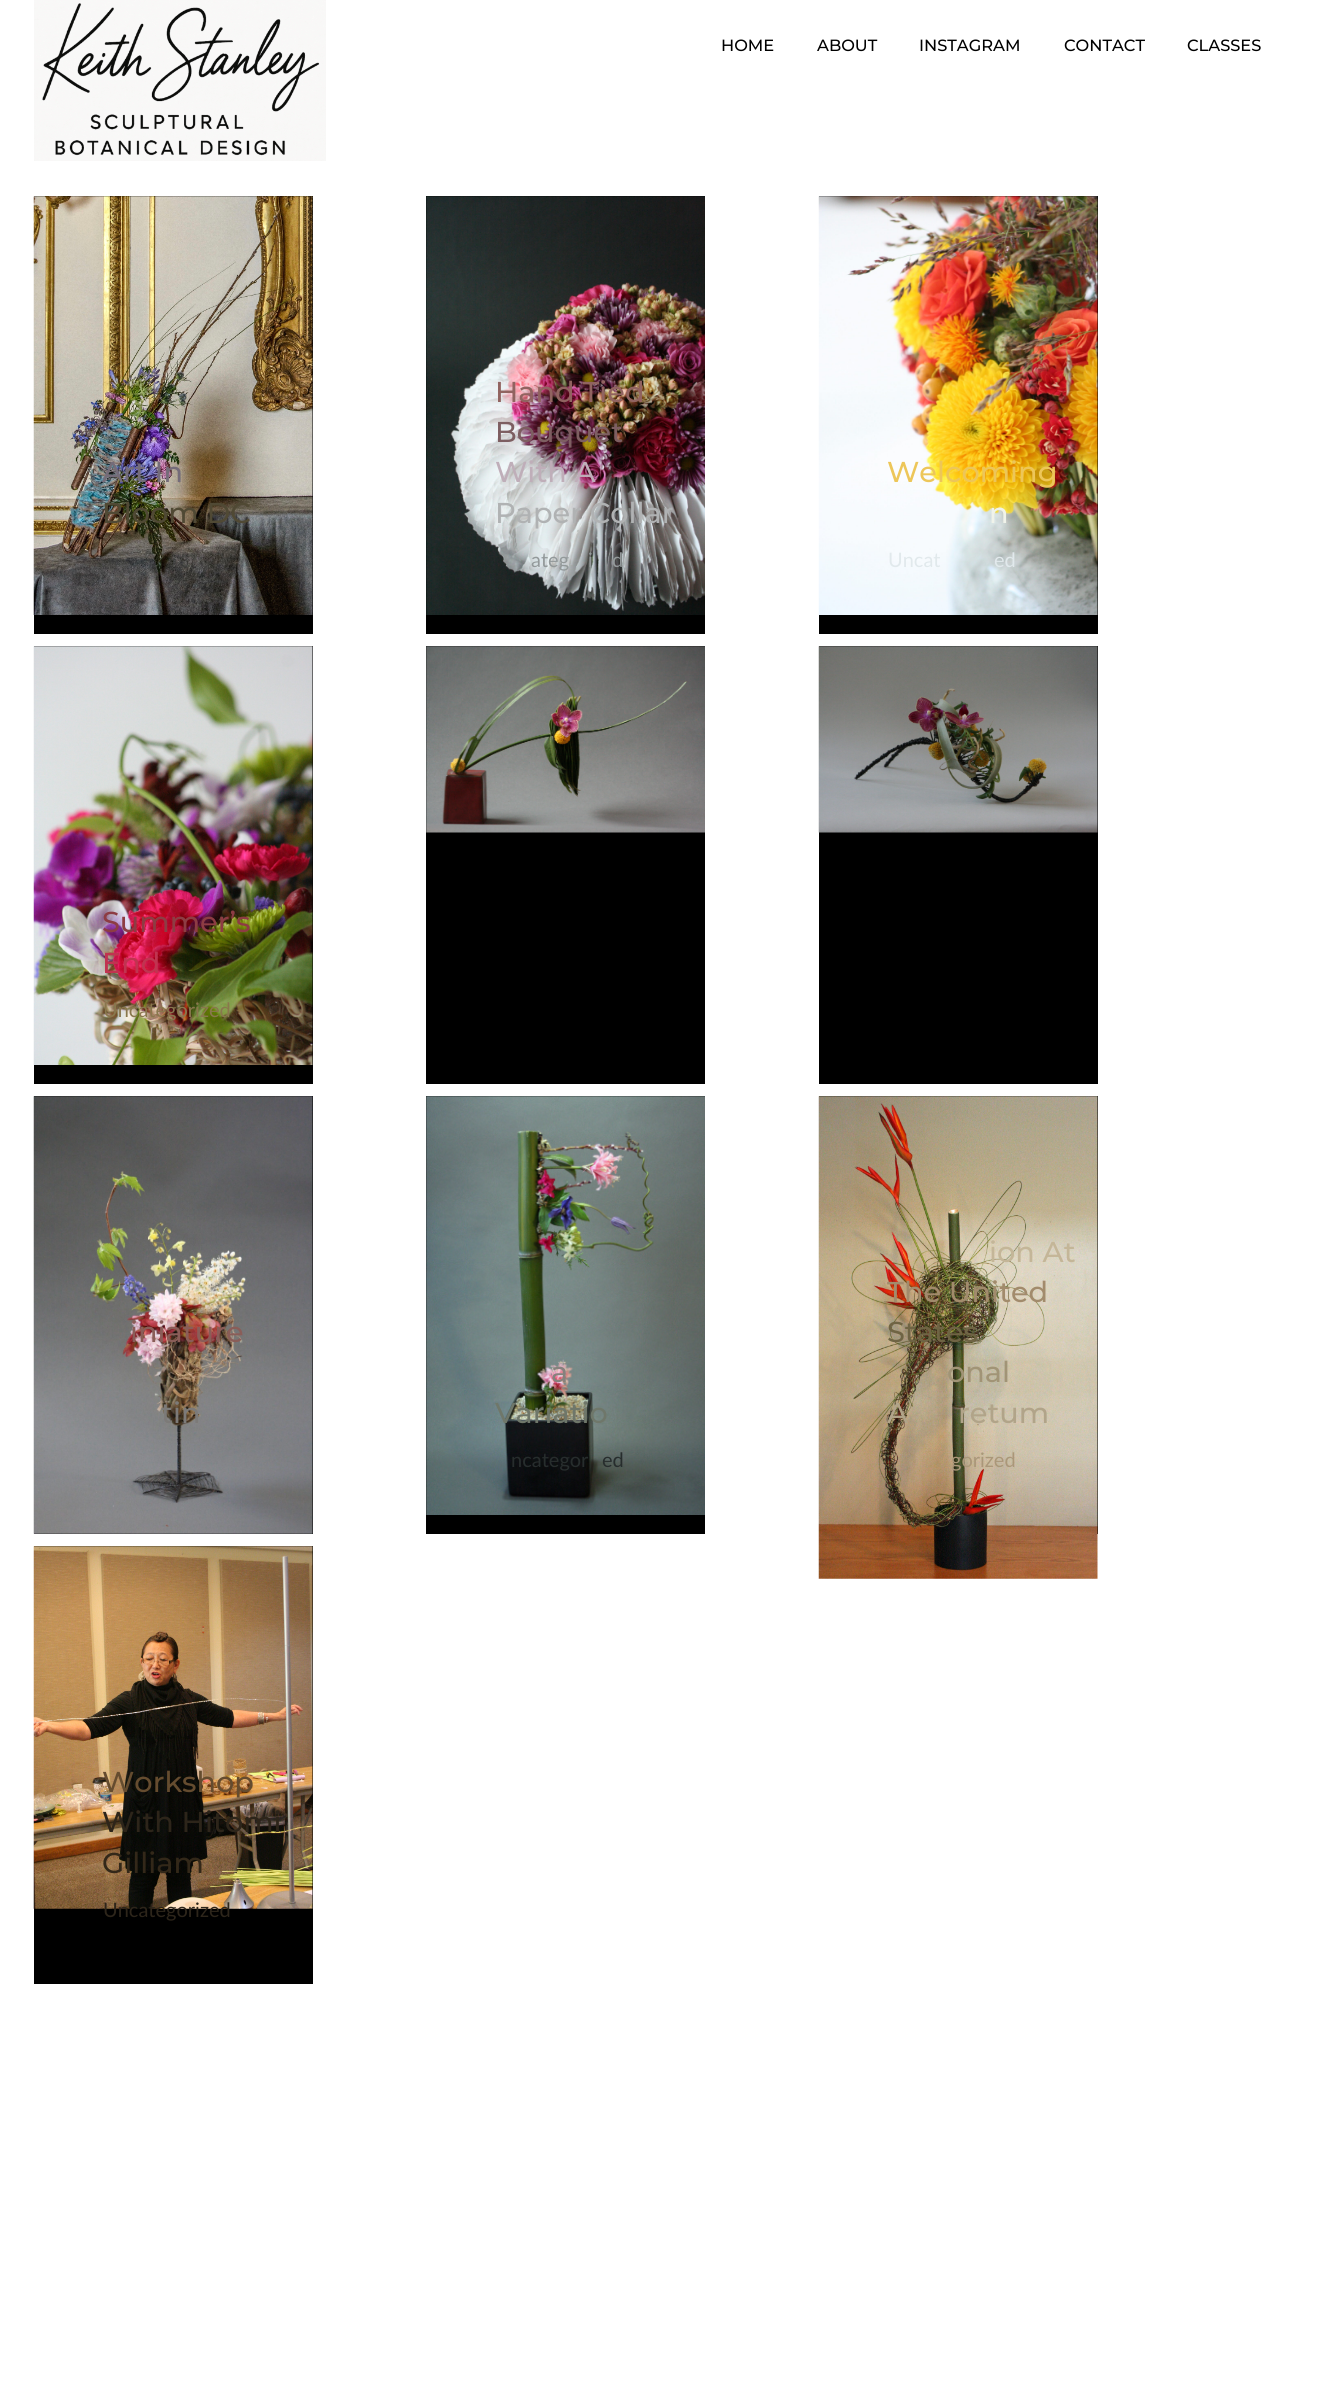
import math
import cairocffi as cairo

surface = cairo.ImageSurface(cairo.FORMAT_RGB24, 1338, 2394)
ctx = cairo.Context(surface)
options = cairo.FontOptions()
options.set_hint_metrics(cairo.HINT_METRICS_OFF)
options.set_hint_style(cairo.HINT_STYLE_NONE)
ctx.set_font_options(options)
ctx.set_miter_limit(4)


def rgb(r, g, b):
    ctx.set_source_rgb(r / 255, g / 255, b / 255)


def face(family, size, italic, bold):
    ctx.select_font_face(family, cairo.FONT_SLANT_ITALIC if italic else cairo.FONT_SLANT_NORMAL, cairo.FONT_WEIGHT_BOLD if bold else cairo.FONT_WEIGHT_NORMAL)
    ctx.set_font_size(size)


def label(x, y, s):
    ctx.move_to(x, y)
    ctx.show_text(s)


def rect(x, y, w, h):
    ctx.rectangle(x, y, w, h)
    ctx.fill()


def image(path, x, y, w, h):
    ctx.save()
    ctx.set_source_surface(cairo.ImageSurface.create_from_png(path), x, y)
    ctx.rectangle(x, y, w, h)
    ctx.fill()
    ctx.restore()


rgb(255, 255, 255)
ctx.paint()
image('image0.png', 34, 0, 292, 161)
face('Montserrat Medium', 16.25, 0, 0)
rgb(0, 0, 0)
label(721, 51, 'HOME')
label(817, 51, 'ABOUT')
label(919, 51, 'INSTAGRAM')
label(1064, 51, 'CONTACT')
label(1187, 51, 'CLASSES')
rect(34, 196, 279, 438)
image('image1.png', 33, 196, 280, 419)
face('Montserrat Medium', 28.75, 0, 0)
rgb(116, 108, 121)
label(102, 482, 'Art In')
rgb(80, 73, 52)
label(102, 523, 'Bloom DC')
rgb(0, 0, 0)
rect(426, 196, 279, 438)
image('image2.png', 426, 196, 279, 419)
rgb(145, 99, 96)
label(495, 402, 'Hand Tied')
rgb(125, 94, 97)
label(495, 442, 'Bouquet')
rgb(191, 174, 185)
label(495, 482, 'With A')
rgb(176, 178, 179)
label(495, 523, 'Paper Collar')
face('Lato', 20, 0, 0)
rgb(147, 153, 154)
label(531, 567, 'ateg')
label(588, 567, 'i')
label(612, 567, 'd')
rgb(0, 0, 0)
rect(819, 196, 279, 438)
image('image3.png', 818, 196, 280, 419)
face('Montserrat Medium', 28.75, 0, 0)
rgb(237, 198, 89)
label(887, 482, 'Welcoming')
rgb(240, 243, 234)
label(989, 523, 'n')
face('Lato', 20, 0, 0)
rgb(225, 233, 236)
label(888, 567, 'Uncat')
label(994, 567, 'ed')
rgb(0, 0, 0)
rect(34, 646, 279, 438)
image('image4.png', 33, 646, 280, 419)
face('Montserrat Medium', 28.75, 0, 0)
rgb(141, 60, 67)
label(102, 932, 'Summer’s')
rgb(192, 52, 80)
label(102, 973, 'End')
face('Lato', 20, 0, 0)
rgb(137, 119, 77)
label(103, 1017, 'Uncategorized')
rgb(0, 0, 0)
rect(426, 646, 279, 438)
image('image5.png', 426, 646, 279, 187)
rect(819, 646, 279, 438)
image('image6.png', 818, 646, 280, 187)
rect(34, 1096, 279, 438)
image('image7.png', 33, 1096, 280, 438)
face('Montserrat Medium', 28.75, 0, 0)
rgb(138, 93, 88)
label(130, 1342, 'iniature')
rgb(124, 122, 120)
label(161, 1423, 'tin')
rgb(0, 0, 0)
rect(426, 1096, 279, 438)
image('image8.png', 426, 1096, 279, 419)
rgb(133, 129, 125)
label(551, 1382, 'a')
rgb(111, 119, 106)
label(495, 1423, 'Variatio')
face('Lato', 20, 0, 0)
rgb(39, 45, 45)
label(511, 1467, 'ncategor')
label(602, 1467, 'ed')
rgb(0, 0, 0)
rect(819, 1096, 279, 438)
image('image9.png', 818, 1096, 280, 483)
face('Montserrat Medium', 28.75, 0, 0)
rgb(196, 182, 152)
label(989, 1262, 'ion At')
rgb(162, 139, 108)
label(887, 1302, 'The United')
rgb(111, 100, 68)
label(887, 1342, 'States')
rgb(161, 148, 118)
label(947, 1382, 'onal')
rgb(177, 164, 137)
label(887, 1423, 'A')
label(958, 1423, 'retum')
face('Lato', 20, 0, 0)
rgb(170, 151, 121)
label(951, 1467, 'gorized')
rgb(0, 0, 0)
rect(34, 1546, 279, 438)
image('image10.png', 33, 1546, 280, 363)
face('Montserrat Medium', 28.75, 0, 0)
rgb(101, 76, 47)
label(102, 1792, 'Workshop')
rgb(45, 37, 26)
label(102, 1832, 'With Hitomi')
rgb(51, 40, 25)
label(102, 1873, 'Gilliam')
face('Lato', 20, 0, 0)
rgb(45, 37, 26)
label(103, 1917, 'Uncategorized')
surface.write_to_png('render.png')
